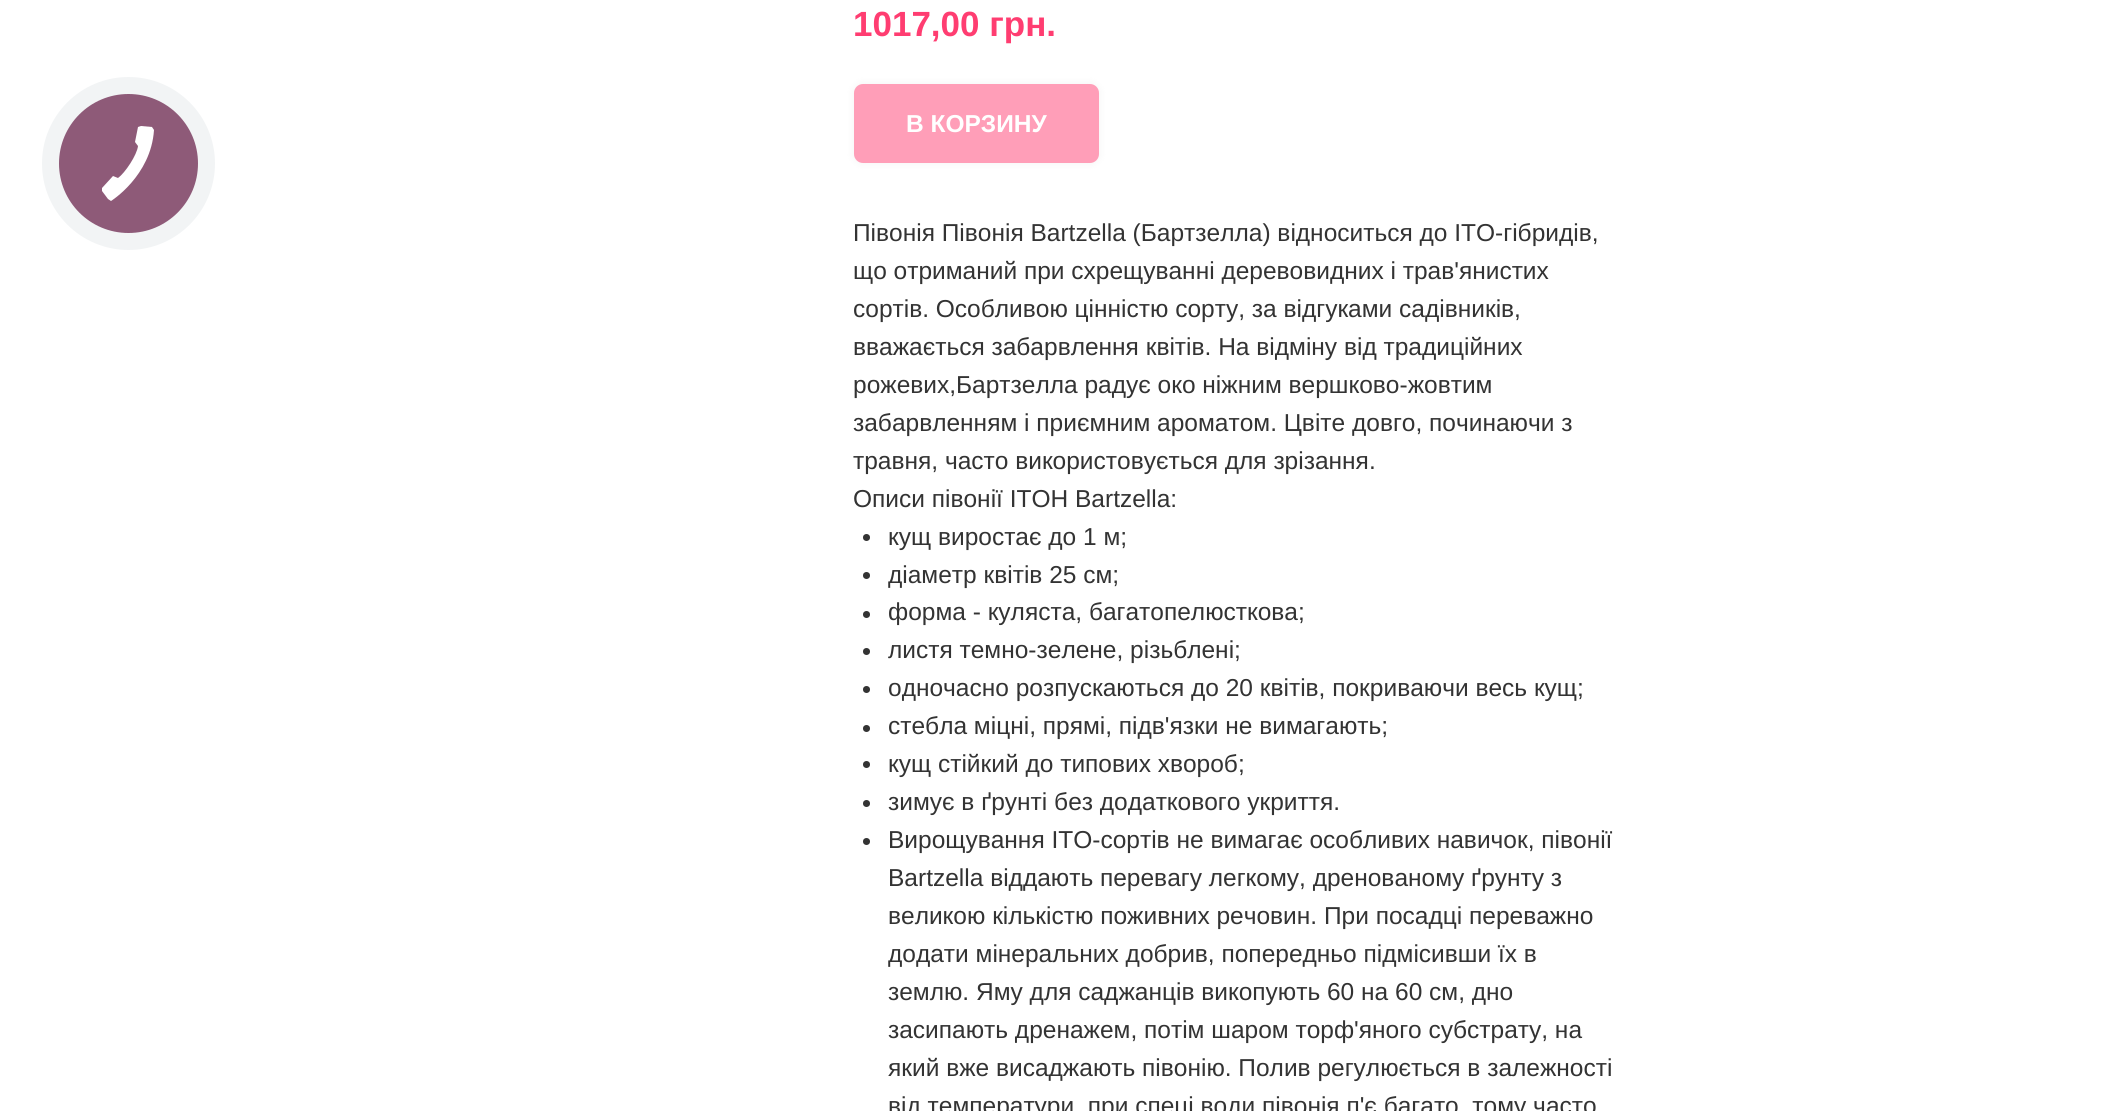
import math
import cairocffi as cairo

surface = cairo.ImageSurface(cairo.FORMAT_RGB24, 2125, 1111)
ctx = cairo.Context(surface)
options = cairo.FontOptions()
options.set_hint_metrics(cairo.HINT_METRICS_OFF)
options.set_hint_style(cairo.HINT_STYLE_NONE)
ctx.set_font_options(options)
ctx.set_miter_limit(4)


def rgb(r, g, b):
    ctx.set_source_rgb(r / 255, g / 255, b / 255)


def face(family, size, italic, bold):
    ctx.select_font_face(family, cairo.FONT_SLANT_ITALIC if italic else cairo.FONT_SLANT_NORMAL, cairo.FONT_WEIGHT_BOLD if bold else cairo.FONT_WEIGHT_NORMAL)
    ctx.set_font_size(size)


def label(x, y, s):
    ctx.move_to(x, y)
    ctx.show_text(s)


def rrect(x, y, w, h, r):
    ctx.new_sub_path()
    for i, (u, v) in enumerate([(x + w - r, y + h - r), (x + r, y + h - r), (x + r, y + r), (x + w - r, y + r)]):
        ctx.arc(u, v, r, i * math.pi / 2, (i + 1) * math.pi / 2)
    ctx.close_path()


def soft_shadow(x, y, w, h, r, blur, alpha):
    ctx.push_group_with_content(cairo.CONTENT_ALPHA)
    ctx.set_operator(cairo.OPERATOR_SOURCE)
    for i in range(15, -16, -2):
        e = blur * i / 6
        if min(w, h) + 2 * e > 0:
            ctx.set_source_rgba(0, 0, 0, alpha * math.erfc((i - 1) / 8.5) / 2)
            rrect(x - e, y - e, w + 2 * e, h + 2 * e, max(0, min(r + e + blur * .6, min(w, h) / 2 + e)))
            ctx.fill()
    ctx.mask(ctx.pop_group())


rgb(255, 255, 255)
ctx.paint()
rgb(242, 244, 245)
ctx.arc(128.5, 163.5, 86.5, 0, 2 * math.pi)
ctx.fill()
rgb(142, 90, 120)
ctx.arc(128.5, 163.5, 69.5, 0, 2 * math.pi)
ctx.fill()
rgb(255, 255, 255)
ctx.set_fill_rule(cairo.FILL_RULE_EVEN_ODD)
ctx.new_path()
ctx.move_to(138, 146)
ctx.curve_to(137, 155, 125, 173, 118, 178)
ctx.line_to(113, 176)
ctx.line_to(102, 188)
ctx.line_to(102, 191)
ctx.line_to(108, 199)
ctx.line_to(111, 201)
ctx.curve_to(111, 201, 151, 176, 154, 130)
ctx.line_to(152, 127)
ctx.line_to(141, 126)
ctx.line_to(138, 127)
ctx.line_to(135, 142)
ctx.line_to(138, 146)
ctx.fill()
face('Liberation Sans', 35, 0, 1)
rgb(255, 61, 113)
label(853, 36, '1017,00 грн.')
rgb(128, 128, 128)
soft_shadow(854, 84, 245, 79, 9, 4.5, 0.1)
rgb(255, 158, 184)
rrect(854, 84, 245, 79, 9)
ctx.fill()
face('Liberation Sans', 24.5, 0, 1)
rgb(255, 255, 255)
label(906, 132, 'В КОРЗИНУ')
face('Liberation Sans', 24.5, 0, 0)
rgb(51, 51, 51)
label(853, 241, 'Півонія Півонія Bartzella (Бартзелла) відноситься до ІТО-гібридів,')
label(853, 279, 'що отриманий при схрещуванні деревовидних і трав\'янистих')
label(853, 317, 'сортів. Особливою цінністю сорту, за відгуками садівників,')
label(853, 355, 'вважається забарвлення квітів. На відміну від традиційних')
label(853, 393, 'рожевих,Бартзелла радує око ніжним вершково-жовтим')
label(853, 431, 'забарвленням і приємним ароматом. Цвіте довго, починаючи з')
label(853, 469, 'травня, часто використовується для зрізання.')
label(853, 507, 'Описи півонії ITOH Bartzella:')
ctx.new_path()
ctx.arc(866.5, 537.5, 3.5, 0, 2 * math.pi)
ctx.fill()
label(888, 545, 'кущ виростає до 1 м;')
ctx.new_path()
ctx.arc(866.5, 575.5, 3.5, 0, 2 * math.pi)
ctx.fill()
label(888, 583, 'діаметр квітів 25 см;')
ctx.new_path()
ctx.arc(866.5, 614.5, 3.5, 0, 2 * math.pi)
ctx.fill()
label(888, 620, 'форма - куляста, багатопелюсткова;')
ctx.new_path()
ctx.arc(866.5, 651.5, 3.5, 0, 2 * math.pi)
ctx.fill()
label(888, 658, 'листя темно-зелене, різьблені;')
ctx.new_path()
ctx.arc(866.5, 689.5, 3.5, 0, 2 * math.pi)
ctx.fill()
label(888, 696, 'одночасно розпускаються до 20 квітів, покриваючи весь кущ;')
ctx.new_path()
ctx.arc(866.5, 728.5, 3.5, 0, 2 * math.pi)
ctx.fill()
label(888, 734, 'стебла міцні, прямі, підв\'язки не вимагають;')
ctx.new_path()
ctx.arc(866.5, 764.5, 3.5, 0, 2 * math.pi)
ctx.fill()
label(888, 772, 'кущ стійкий до типових хвороб;')
ctx.new_path()
ctx.arc(866.5, 803.5, 3.5, 0, 2 * math.pi)
ctx.fill()
label(888, 810, 'зимує в ґрунті без додаткового укриття.')
ctx.new_path()
ctx.arc(866.5, 841.5, 3.5, 0, 2 * math.pi)
ctx.fill()
label(888, 848, 'Вирощування ІТО-сортів не вимагає особливих навичок, півонії')
label(888, 886, 'Bartzella віддають перевагу легкому, дренованому ґрунту з')
label(888, 924, 'великою кількістю поживних речовин. При посадці переважно')
label(888, 962, 'додати мінеральних добрив, попередньо підмісивши їх в')
label(888, 1000, 'землю. Яму для саджанців викопують 60 на 60 см, дно')
label(888, 1038, 'засипають дренажем, потім шаром торф\'яного субстрату, на')
label(888, 1076, 'який вже висаджають півонію. Полив регулюється в залежності')
label(888, 1114, 'від температури, при спеці води півонія п\'є багато, тому часто')
surface.write_to_png('render.png')
